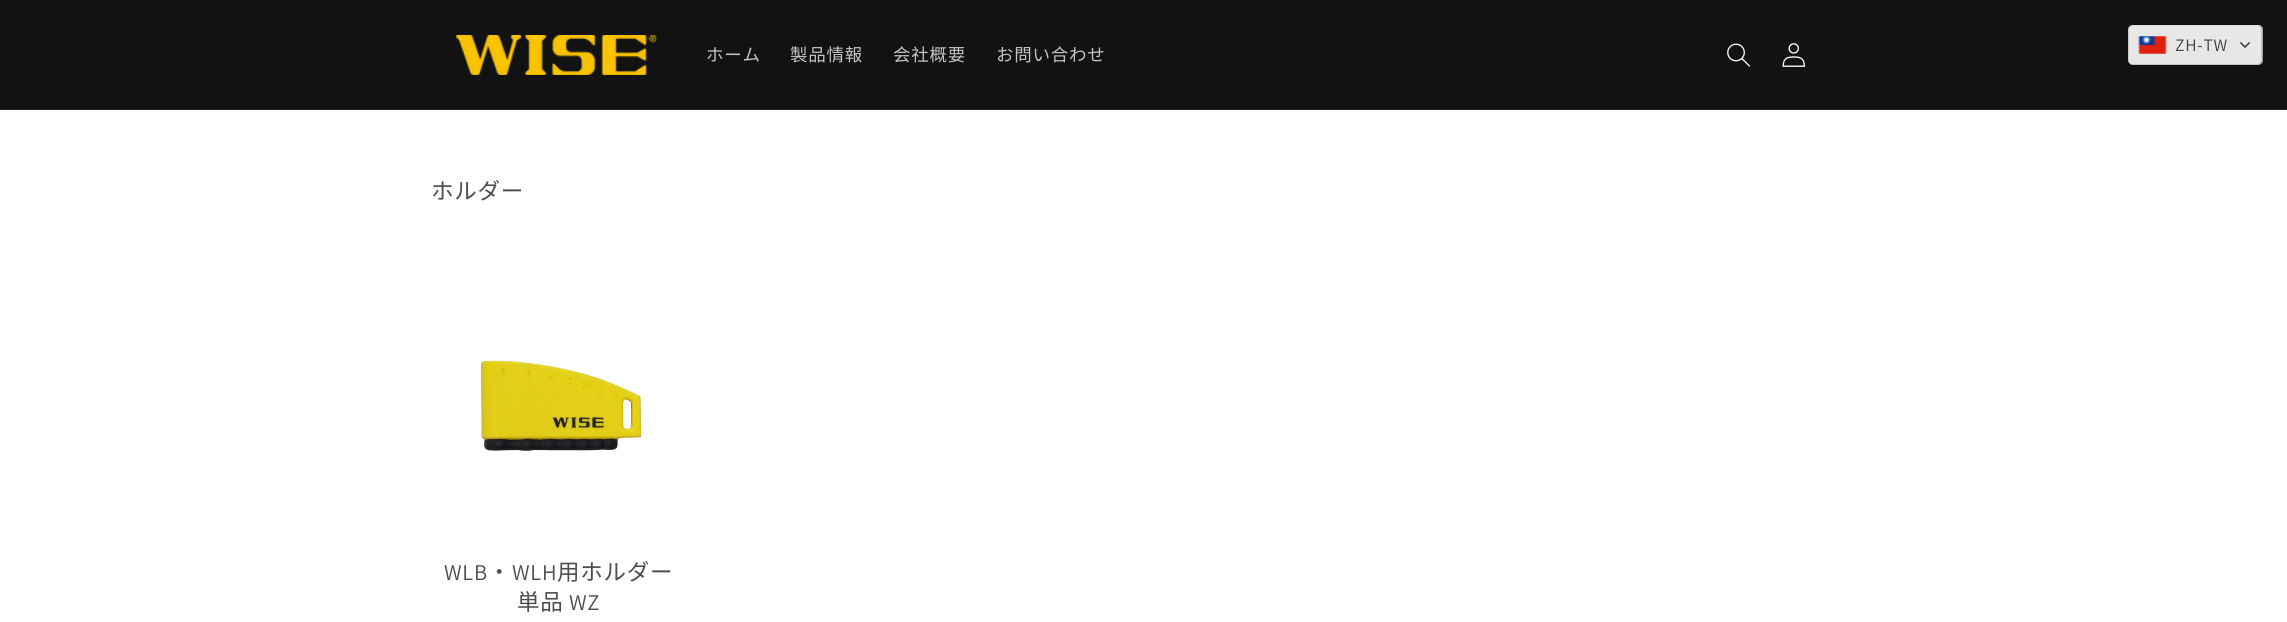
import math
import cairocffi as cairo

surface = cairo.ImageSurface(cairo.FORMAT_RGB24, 2287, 622)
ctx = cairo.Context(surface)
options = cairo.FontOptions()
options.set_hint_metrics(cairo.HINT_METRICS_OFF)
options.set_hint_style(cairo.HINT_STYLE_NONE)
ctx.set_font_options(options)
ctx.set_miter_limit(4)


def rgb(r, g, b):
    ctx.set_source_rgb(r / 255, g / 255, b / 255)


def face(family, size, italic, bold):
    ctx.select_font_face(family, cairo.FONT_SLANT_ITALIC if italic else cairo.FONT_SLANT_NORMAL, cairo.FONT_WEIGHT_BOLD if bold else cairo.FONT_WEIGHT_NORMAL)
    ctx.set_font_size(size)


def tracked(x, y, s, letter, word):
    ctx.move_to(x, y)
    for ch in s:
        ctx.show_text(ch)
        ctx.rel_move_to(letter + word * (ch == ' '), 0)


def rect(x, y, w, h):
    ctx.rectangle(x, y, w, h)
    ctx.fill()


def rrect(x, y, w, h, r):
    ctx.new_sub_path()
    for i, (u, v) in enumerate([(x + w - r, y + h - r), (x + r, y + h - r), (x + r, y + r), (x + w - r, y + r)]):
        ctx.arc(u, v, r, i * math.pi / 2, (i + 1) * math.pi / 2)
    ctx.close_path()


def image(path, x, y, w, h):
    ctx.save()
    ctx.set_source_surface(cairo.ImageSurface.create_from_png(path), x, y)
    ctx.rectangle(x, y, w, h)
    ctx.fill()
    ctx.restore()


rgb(255, 255, 255)
ctx.paint()
rgb(18, 18, 18)
rect(0, 0, 2287, 109)
rgb(37, 37, 37)
rect(0, 109, 2287, 1)
image('image0.png', 456, 35, 201, 40)
face('Noto Sans CJK TC', 17.5, 0, 0)
rgb(196, 196, 196)
tracked(706, 61, 'ホーム', 0.75, 0)
tracked(790, 61, '製品情報', 0.75, 0)
tracked(893, 61, '会社概要', 0.75, 0)
tracked(996, 61, 'お問い合わせ', 0.75, 0)
image('image1.png', 1727, 43, 23, 24)
image('image2.png', 1782, 43, 23, 24)
rgb(231, 231, 231)
rrect(2128, 25, 135, 40, 5)
ctx.fill()
ctx.set_source_rgba(0.8, 0.8, 0.8, 0.5)
ctx.new_path()
ctx.move_to(2132, 26)
ctx.line_to(2258, 26)
ctx.curve_to(2260, 26, 2262, 28, 2262, 31)
ctx.line_to(2262, 61)
ctx.line_to(2261, 64)
ctx.curve_to(2262, 63, 2263, 61, 2263, 60)
ctx.line_to(2263, 30)
ctx.curve_to(2263, 27, 2261, 25, 2258, 25)
ctx.line_to(2133, 25)
ctx.curve_to(2130, 25, 2128, 27, 2128, 30)
ctx.line_to(2128, 31)
ctx.curve_to(2128, 28, 2130, 26, 2132, 26)
ctx.close_path()
ctx.fill()
ctx.set_source_rgba(0, 0, 0, 0.17)
ctx.new_path()
ctx.move_to(2128, 59)
ctx.line_to(2128, 60)
ctx.curve_to(2128, 63, 2130, 65, 2133, 65)
ctx.line_to(2258, 65)
ctx.curve_to(2261, 65, 2263, 63, 2263, 60)
ctx.line_to(2263, 30)
ctx.curve_to(2263, 29, 2262, 27, 2261, 26)
ctx.line_to(2262, 29)
ctx.line_to(2262, 59)
ctx.curve_to(2262, 62, 2260, 64, 2258, 64)
ctx.line_to(2132, 64)
ctx.curve_to(2130, 64, 2128, 62, 2128, 59)
ctx.close_path()
ctx.fill()
ctx.set_source_rgba(0, 0, 0, 0.13)
ctx.new_path()
ctx.move_to(2256, 65)
ctx.curve_to(2263, 65, 2263, 62, 2263, 55)
ctx.line_to(2263, 35)
ctx.curve_to(2263, 28, 2263, 25, 2256, 25)
ctx.curve_to(2259, 25, 2261, 27, 2261, 30)
ctx.line_to(2261, 60)
ctx.curve_to(2261, 63, 2259, 65, 2256, 65)
ctx.close_path()
ctx.fill()
ctx.new_path()
ctx.move_to(2133, 25)
ctx.curve_to(2130, 25, 2128, 27, 2128, 30)
ctx.line_to(2128, 60)
ctx.curve_to(2128, 63, 2130, 65, 2133, 65)
ctx.line_to(2134, 65)
ctx.curve_to(2131, 65, 2129, 63, 2129, 60)
ctx.line_to(2129, 30)
ctx.curve_to(2129, 27, 2131, 25, 2134, 25)
ctx.close_path()
ctx.fill()
rrect(2138.5, 35.5, 29, 19, 2)
rgb(228, 229, 230)
ctx.set_line_width(1)
ctx.stroke()
image('image3.png', 2138, 36, 29, 18)
face('Assistant', 17.5, 0, 0)
rgb(64, 64, 64)
tracked(2175, 51, 'ZH-TW', 0.75, 0)
image('image4.png', 2240, 42, 10, 6)
face('Noto Sans CJK TC', 22.5, 0, 0)
rgb(77, 77, 77)
tracked(431, 199, 'ホルダー', 0.75, 0)
image('image5.png', 480, 360, 162, 91)
face('Assistant', 22.5, 0, 0)
tracked(444, 580, 'WLB', 0.75, 0)
face('Noto Sans CJK TC', 22.5, 0, 0)
tracked(488, 580, '・', 0.75, 0)
face('Assistant', 22.5, 0, 0)
tracked(512, 580, 'WLH', 0.75, 0)
face('Noto Sans CJK TC', 22.5, 0, 0)
tracked(557, 580, '用ホルダー', 0.75, 0)
tracked(517, 610, '単品', 0.75, 0)
face('Assistant', 22.5, 0, 0)
tracked(569, 610, 'WZ', 0.75, 0)
surface.write_to_png('render.png')
